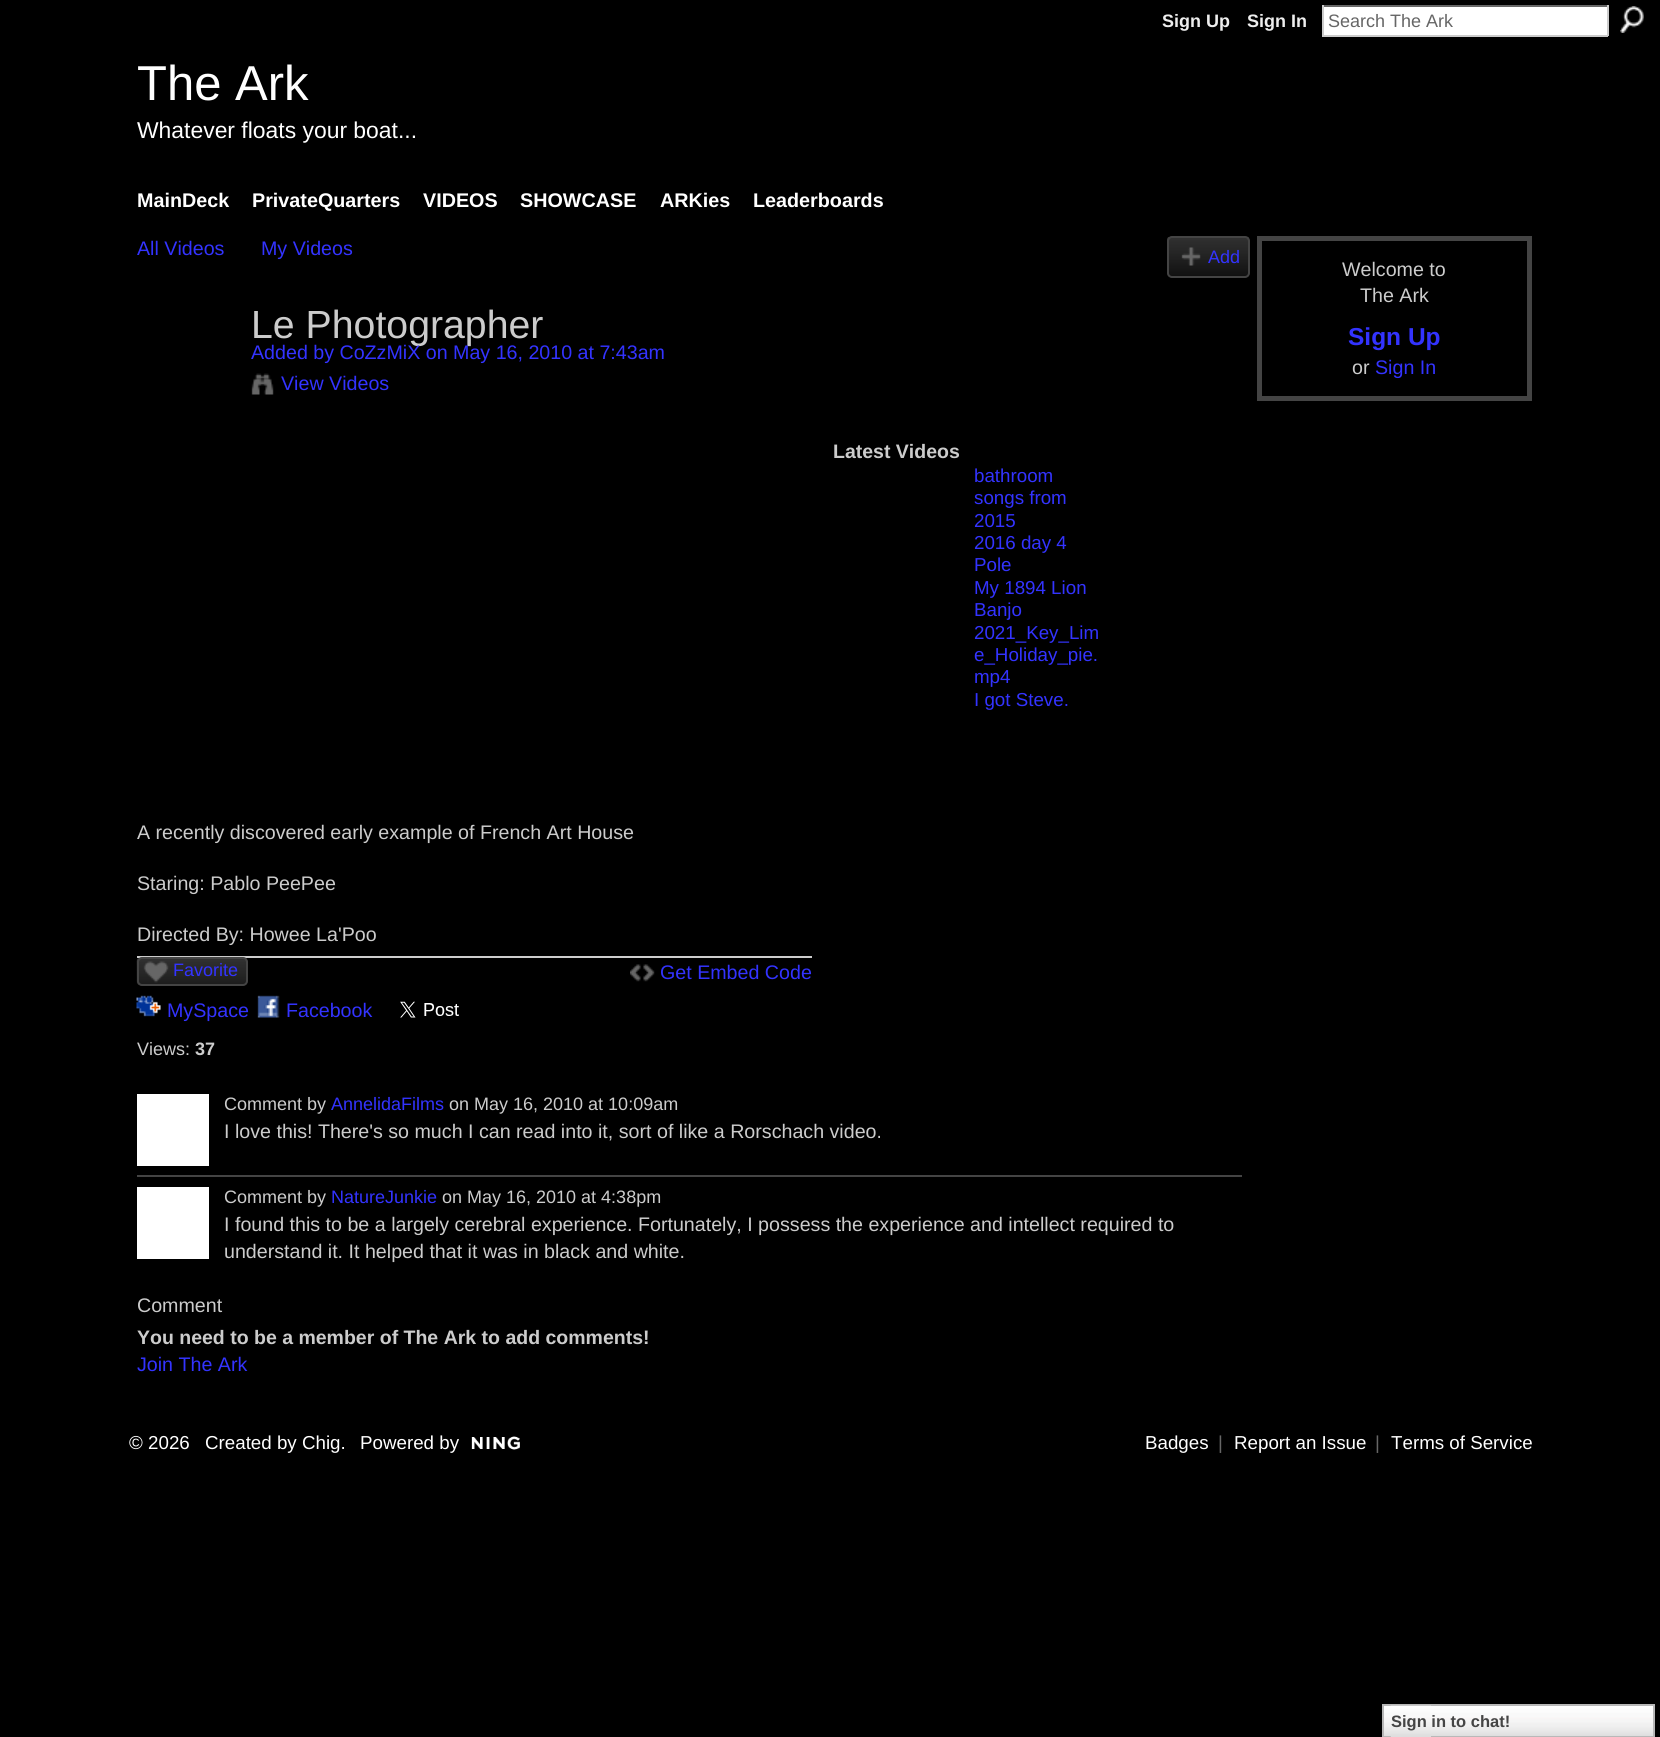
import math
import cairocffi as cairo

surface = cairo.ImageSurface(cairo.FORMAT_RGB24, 1660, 1737)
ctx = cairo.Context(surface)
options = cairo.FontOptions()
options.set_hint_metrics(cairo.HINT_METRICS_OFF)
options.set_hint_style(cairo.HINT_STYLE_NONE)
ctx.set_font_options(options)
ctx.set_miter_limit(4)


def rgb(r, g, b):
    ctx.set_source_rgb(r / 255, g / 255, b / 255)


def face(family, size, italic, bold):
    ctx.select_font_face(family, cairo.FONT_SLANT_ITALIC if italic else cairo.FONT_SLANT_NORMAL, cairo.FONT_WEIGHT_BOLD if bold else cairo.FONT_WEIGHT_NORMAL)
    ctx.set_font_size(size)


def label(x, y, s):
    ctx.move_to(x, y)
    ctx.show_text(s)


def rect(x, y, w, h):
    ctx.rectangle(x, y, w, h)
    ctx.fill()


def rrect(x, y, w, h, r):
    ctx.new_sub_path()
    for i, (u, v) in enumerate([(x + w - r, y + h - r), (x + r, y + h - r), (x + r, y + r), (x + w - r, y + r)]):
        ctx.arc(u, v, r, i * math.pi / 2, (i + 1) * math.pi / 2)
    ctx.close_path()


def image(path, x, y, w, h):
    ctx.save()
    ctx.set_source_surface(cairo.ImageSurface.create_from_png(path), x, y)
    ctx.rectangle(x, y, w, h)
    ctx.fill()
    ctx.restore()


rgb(0, 0, 0)
ctx.paint()
face('Liberation Sans', 18, 0, 1)
rgb(238, 238, 238)
label(1162, 27, 'Sign Up')
label(1247, 27, 'Sign In')
rgb(255, 255, 255)
rect(1324, 7, 283, 28)
rgb(102, 102, 102)
rect(1322, 5, 286, 2)
rgb(204, 204, 204)
rect(1607, 5, 2, 31)
rect(1322, 35, 286, 2)
rect(1322, 5, 2, 31)
face('Liberation Sans', 18, 0, 0)
rgb(102, 102, 102)
label(1328, 27, 'Search The Ark')
image('image0.png', 1620, 6, 24, 27)
face('Liberation Sans', 49, 0, 0)
rgb(255, 255, 255)
label(137, 100, 'The Ark')
face('Liberation Sans', 22.9, 0, 0)
label(137, 138, 'Whatever floats your boat...')
face('Liberation Sans', 19.75, 0, 1)
label(137, 207, 'MainDeck')
label(252, 207, 'PrivateQuarters')
label(423, 207, 'VIDEOS')
label(520, 207, 'SHOWCASE')
label(660, 207, 'ARKies')
label(753, 207, 'Leaderboards')
face('Liberation Sans', 19.65, 0, 0)
rgb(51, 51, 255)
label(137, 255, 'All Videos')
label(261, 255, 'My Videos')
image('image1.png', 1167, 237, 83, 40)
rrect(1168, 237, 81, 40, 4)
rgb(68, 68, 68)
ctx.stroke()
image('image2.png', 1181, 247, 20, 19)
face('Liberation Sans', 18, 0, 0)
rgb(51, 51, 255)
label(1208, 263, 'Add')
face('Liberation Sans', 39.25, 0, 0)
rgb(204, 204, 204)
label(251, 338, 'Le Photographer')
face('Liberation Sans', 19.65, 0, 0)
rgb(51, 51, 255)
label(251, 359, 'Added by CoZzMiX on May 16, 2010 at 7:43am')
image('image3.png', 251, 373, 23, 22)
label(281, 390, 'View Videos')
face('Liberation Sans', 19.5, 0, 1)
rgb(204, 204, 204)
label(833, 458, 'Latest Videos')
face('Liberation Sans', 18.75, 0, 0)
rgb(51, 51, 255)
label(974, 482, 'bathroom')
label(974, 504, 'songs from')
label(974, 527, '2015')
label(974, 549, '2016 day 4')
label(974, 571, 'Pole')
label(974, 594, 'My 1894 Lion')
label(974, 616, 'Banjo')
label(974, 639, '2021_Key_Lim')
label(974, 661, 'e_Holiday_pie.')
label(974, 683, 'mp4')
label(974, 706, 'I got Steve.')
rgb(204, 204, 204)
rect(137, 956, 675, 2)
face('Liberation Sans', 19.65, 0, 0)
label(137, 839, 'A recently discovered early example of French Art House')
label(137, 890, 'Staring: Pablo PeePee')
label(137, 941, 'Directed By: Howee La\'Poo')
image('image4.png', 136, 958, 112, 28)
rrect(138, 958, 109, 27, 4)
rgb(68, 68, 68)
ctx.stroke()
image('image5.png', 143, 961, 26, 22)
face('Liberation Sans', 18, 0, 0)
rgb(51, 51, 255)
label(173, 976, 'Favorite')
image('image6.png', 136, 995, 25, 22)
face('Liberation Sans', 19.65, 0, 0)
label(167, 1017, 'MySpace')
image('image7.png', 257, 995, 23, 23)
label(286, 1017, 'Facebook')
image('image8.png', 400, 1001, 59, 17)
face('Liberation Sans', 18, 0, 0)
rgb(204, 204, 204)
label(137, 1055, 'Views:')
face('Liberation Sans', 18, 0, 1)
label(195, 1055, '37')
image('image9.png', 630, 964, 25, 18)
face('Liberation Sans', 19.65, 0, 0)
rgb(51, 51, 255)
label(660, 979, 'Get Embed Code')
rgb(68, 68, 68)
rect(137, 1175, 1105, 2)
rgb(255, 255, 255)
rect(137, 1094, 72, 72)
face('Liberation Sans', 18, 0, 0)
rgb(204, 204, 204)
label(224, 1110, 'Comment by')
rgb(51, 51, 255)
label(331, 1110, 'AnnelidaFilms')
rgb(204, 204, 204)
label(449, 1110, 'on May 16, 2010 at 10:09am')
face('Liberation Sans', 19.65, 0, 0)
label(224, 1138, 'I love this! There\'s so much I can read into it, sort of like a Rorschach video.')
rgb(255, 255, 255)
rect(137, 1187, 72, 72)
face('Liberation Sans', 18, 0, 0)
rgb(204, 204, 204)
label(224, 1203, 'Comment by')
rgb(51, 51, 255)
label(331, 1203, 'NatureJunkie')
rgb(204, 204, 204)
label(442, 1203, 'on May 16, 2010 at 4:38pm')
face('Liberation Sans', 19.65, 0, 0)
label(224, 1231, 'I found this to be a largely cerebral experience. Fortunately, I possess the experience and intellect required to')
label(224, 1258, 'understand it. It helped that it was in black and white.')
label(137, 1312, 'Comment')
face('Liberation Sans', 19.5, 0, 1)
label(137, 1344, 'You need to be a member of The Ark to add comments!')
face('Liberation Sans', 19.65, 0, 0)
rgb(51, 51, 255)
label(137, 1371, 'Join The Ark')
ctx.rectangle(1259.5, 238.5, 270, 160)
rgb(68, 68, 68)
ctx.set_line_width(5)
ctx.stroke()
rgb(204, 204, 204)
label(1342, 276, 'Welcome to')
label(1360, 302, 'The Ark')
face('Liberation Sans', 24.5, 0, 1)
rgb(51, 51, 255)
label(1348, 345, 'Sign Up')
face('Liberation Sans', 19.65, 0, 0)
rgb(204, 204, 204)
label(1352, 374, 'or')
rgb(51, 51, 255)
label(1375, 374, 'Sign In')
face('Liberation Sans', 18.75, 0, 0)
rgb(255, 255, 255)
label(129, 1449, '© 2026')
label(205, 1449, 'Created by Chig.')
label(360, 1449, 'Powered by')
image('image10.png', 471, 1436, 49, 14)
label(1145, 1449, 'Badges')
rgb(102, 102, 102)
label(1218, 1449, '|')
rgb(255, 255, 255)
label(1234, 1449, 'Report an Issue')
rgb(102, 102, 102)
label(1375, 1449, '|')
rgb(255, 255, 255)
label(1391, 1449, 'Terms of Service')
image('image11.png', 1384, 1706, 269, 31)
ctx.rectangle(1383, 1705, 271, 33)
rgb(183, 183, 183)
ctx.set_line_width(2)
ctx.stroke()
image('image12.png', 1390, 1705, 41, 32)
face('Liberation Sans', 16.5, 0, 1)
rgb(69, 69, 69)
label(1391, 1727, 'Sign in to chat!')
surface.write_to_png('render.png')
